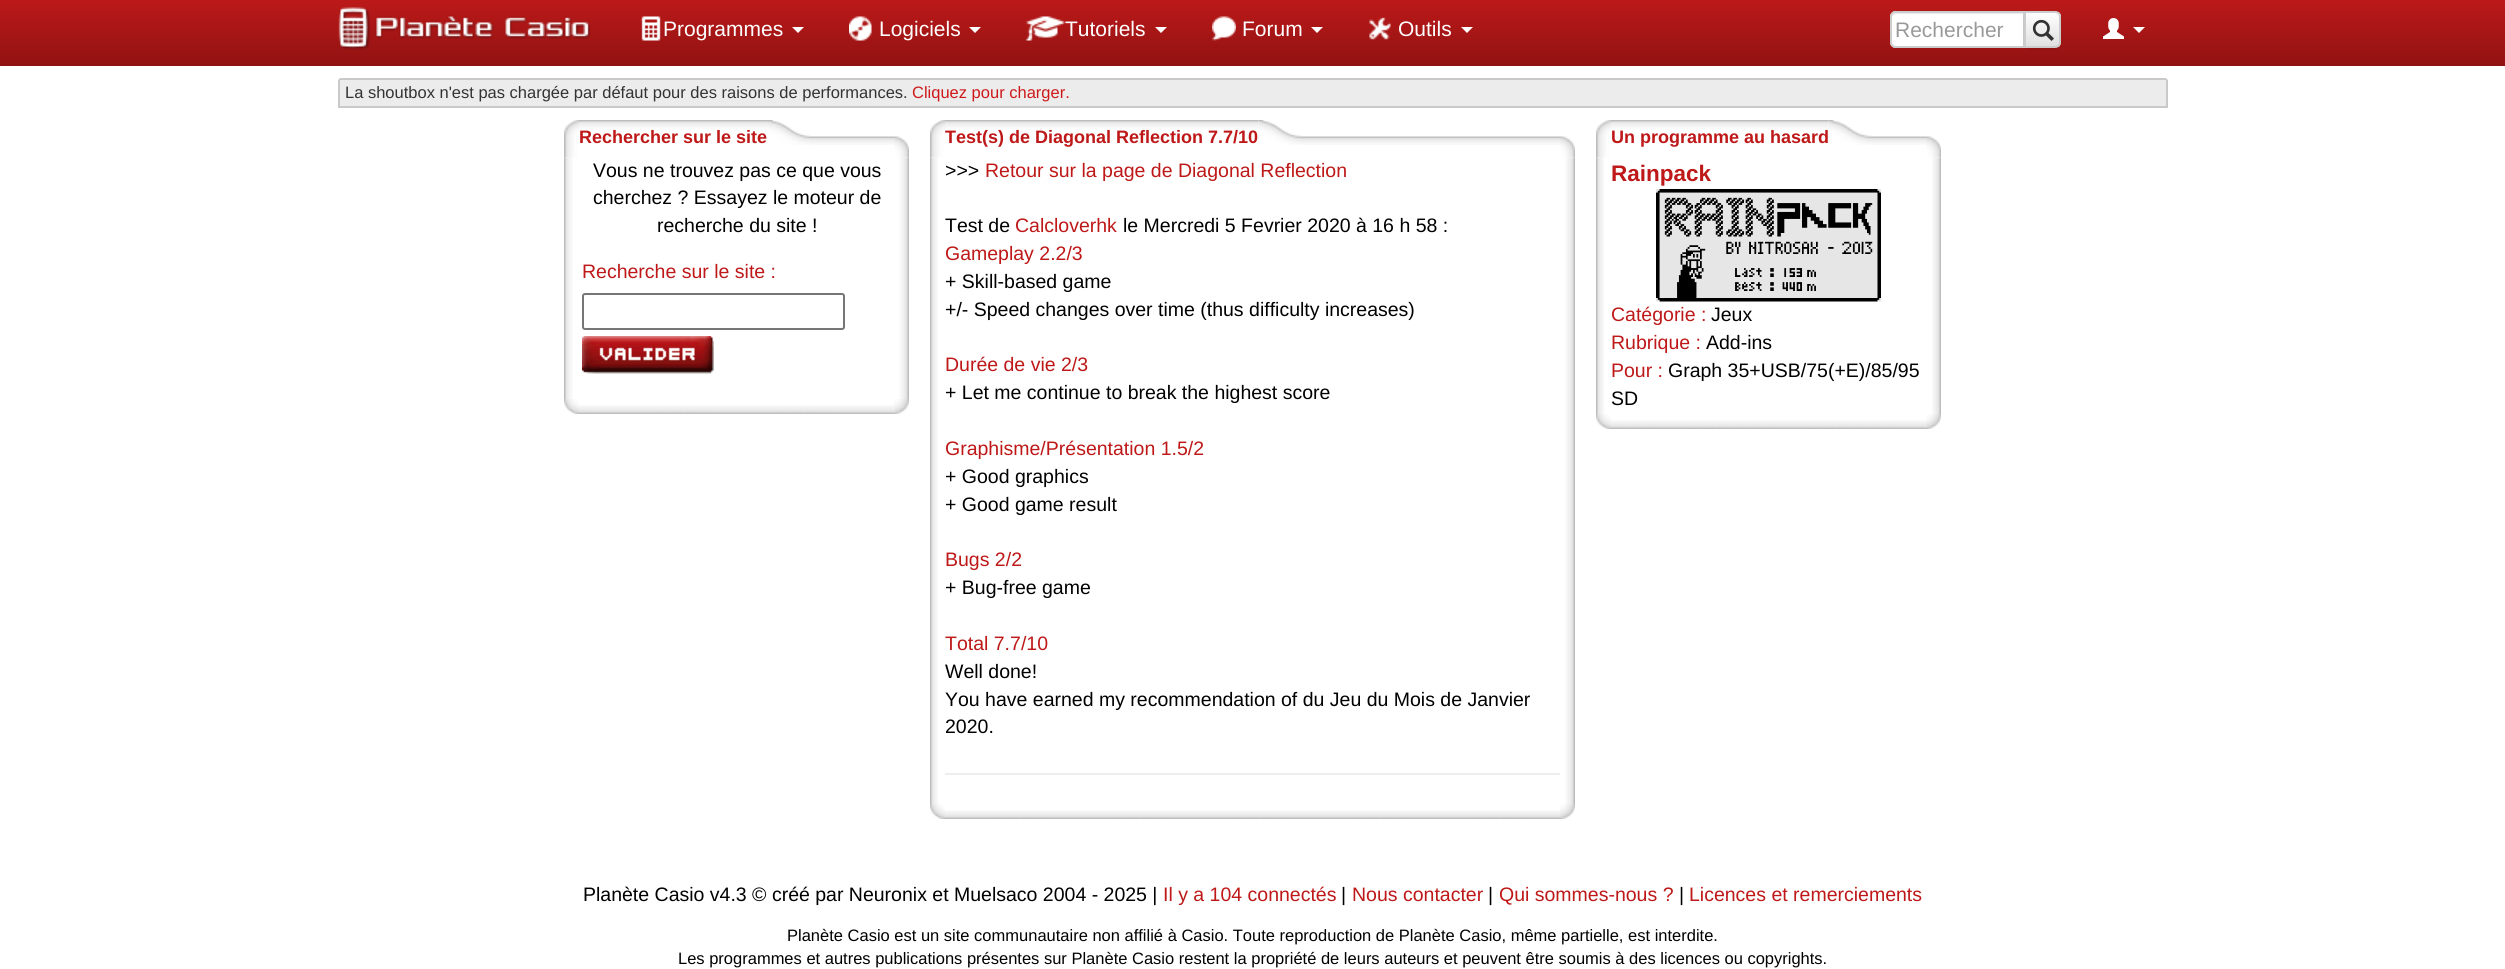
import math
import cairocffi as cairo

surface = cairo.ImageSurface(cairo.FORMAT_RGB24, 2505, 969)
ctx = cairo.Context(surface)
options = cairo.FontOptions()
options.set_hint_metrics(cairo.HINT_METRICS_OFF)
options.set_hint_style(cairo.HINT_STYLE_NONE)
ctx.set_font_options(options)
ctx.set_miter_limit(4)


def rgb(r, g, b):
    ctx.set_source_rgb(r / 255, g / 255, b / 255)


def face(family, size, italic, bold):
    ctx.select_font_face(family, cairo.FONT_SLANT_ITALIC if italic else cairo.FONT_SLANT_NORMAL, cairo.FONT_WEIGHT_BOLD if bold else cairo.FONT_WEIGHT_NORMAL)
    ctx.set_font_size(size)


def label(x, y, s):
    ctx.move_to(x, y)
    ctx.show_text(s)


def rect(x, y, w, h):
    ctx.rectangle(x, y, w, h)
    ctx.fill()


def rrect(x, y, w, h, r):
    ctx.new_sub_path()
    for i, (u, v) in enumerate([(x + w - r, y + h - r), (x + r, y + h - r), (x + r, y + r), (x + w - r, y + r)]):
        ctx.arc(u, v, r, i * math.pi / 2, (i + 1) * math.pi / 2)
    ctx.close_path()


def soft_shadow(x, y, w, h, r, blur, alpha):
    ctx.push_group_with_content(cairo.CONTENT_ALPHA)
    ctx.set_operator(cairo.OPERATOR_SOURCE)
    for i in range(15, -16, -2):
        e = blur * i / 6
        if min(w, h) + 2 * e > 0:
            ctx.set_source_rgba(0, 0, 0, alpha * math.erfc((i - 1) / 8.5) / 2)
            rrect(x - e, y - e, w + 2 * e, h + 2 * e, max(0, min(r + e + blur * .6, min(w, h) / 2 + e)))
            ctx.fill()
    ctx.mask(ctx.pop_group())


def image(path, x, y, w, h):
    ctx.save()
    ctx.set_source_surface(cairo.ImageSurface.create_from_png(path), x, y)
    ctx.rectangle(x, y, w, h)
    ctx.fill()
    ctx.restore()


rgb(255, 255, 255)
ctx.paint()
gradient = cairo.LinearGradient(1253, -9, 1253, 66)
gradient.add_color_stop_rgba(0, 0.761, 0.102, 0.102, 1)
gradient.add_color_stop_rgba(1, 0.569, 0.071, 0.071, 1)
ctx.set_source(gradient)
rect(0, 0, 2505, 66)
image('image0.png', 338, 7, 253, 43)
image('image1.png', 640, 16, 21, 25)
face('Liberation Sans', 21, 0, 0)
rgb(255, 255, 255)
label(663, 36, 'Programmes')
ctx.new_path()
ctx.move_to(792, 27)
ctx.line_to(804, 27)
ctx.line_to(798, 33)
ctx.close_path()
ctx.fill()
image('image2.png', 849, 16, 23, 25)
label(879, 36, 'Logiciels')
ctx.new_path()
ctx.move_to(969, 27)
ctx.line_to(981, 27)
ctx.line_to(975, 33)
ctx.close_path()
ctx.fill()
image('image3.png', 1026, 16, 39, 25)
label(1065, 36, 'Tutoriels')
ctx.new_path()
ctx.move_to(1155, 27)
ctx.line_to(1167, 27)
ctx.line_to(1161, 33)
ctx.close_path()
ctx.fill()
image('image4.png', 1212, 16, 24, 25)
label(1242, 36, 'Forum')
ctx.new_path()
ctx.move_to(1311, 27)
ctx.line_to(1323, 27)
ctx.line_to(1317, 33)
ctx.close_path()
ctx.fill()
image('image5.png', 1369, 17, 22, 23)
label(1398, 36, 'Outils')
ctx.new_path()
ctx.move_to(1461, 27)
ctx.line_to(1473, 27)
ctx.line_to(1467, 33)
ctx.close_path()
ctx.fill()
ctx.new_path()
ctx.move_to(1896, 11)
ctx.line_to(2025, 11)
ctx.line_to(2025, 48)
ctx.line_to(1896, 48)
ctx.curve_to(1892.5, 48, 1890, 45.5, 1890, 42)
ctx.line_to(1890, 17)
ctx.curve_to(1890, 13.5, 1892.5, 11, 1896, 11)
ctx.close_path()
ctx.fill()
rgb(236, 236, 236)
ctx.new_path()
ctx.move_to(1896, 14)
ctx.line_to(2024, 14)
ctx.line_to(2024, 12)
ctx.line_to(1897, 12)
ctx.curve_to(1894, 12, 1892, 14, 1892, 17)
ctx.line_to(1892, 18)
ctx.curve_to(1892, 16, 1894, 14, 1896, 14)
ctx.close_path()
ctx.fill()
ctx.new_path()
ctx.move_to(1896, 12)
ctx.line_to(2024, 12)
ctx.line_to(2024, 47)
ctx.line_to(1896, 47)
ctx.curve_to(1893, 47, 1891, 45, 1891, 42)
ctx.line_to(1891, 17)
ctx.curve_to(1891, 14, 1893, 12, 1896, 12)
ctx.close_path()
rgb(204, 204, 204)
ctx.stroke()
rgb(153, 153, 153)
label(1895, 37, 'Rechercher')
rgb(0, 0, 0)
soft_shadow(2024, 12, 37, 38, 6, 1, 0.07)
ctx.save()
ctx.new_path()
ctx.move_to(2024, 11)
ctx.line_to(2055, 11)
ctx.curve_to(2058.5, 11, 2061, 13.5, 2061, 17)
ctx.line_to(2061, 42)
ctx.curve_to(2061, 45.5, 2058.5, 48, 2055, 48)
ctx.line_to(2024, 48)
ctx.close_path()
ctx.clip()
gradient = cairo.LinearGradient(2042, 12, 2042, 47)
gradient.add_color_stop_rgba(0, 1, 1, 1, 1)
gradient.add_color_stop_rgba(1, 0.878, 0.878, 0.878, 1)
ctx.set_source(gradient)
rect(2026, 12, 35, 35)
ctx.restore()
ctx.new_path()
ctx.move_to(2025, 12)
ctx.line_to(2055, 12)
ctx.curve_to(2058, 12, 2060, 14, 2060, 17)
ctx.line_to(2060, 42)
ctx.curve_to(2060, 45, 2058, 47, 2055, 47)
ctx.line_to(2025, 47)
ctx.close_path()
rgb(204, 204, 204)
ctx.stroke()
image('image6.png', 2032, 19, 22, 22)
image('image7.png', 2103, 18, 21, 21)
rgb(255, 255, 255)
ctx.new_path()
ctx.move_to(2133, 27)
ctx.line_to(2145, 27)
ctx.line_to(2139, 33)
ctx.close_path()
ctx.fill()
rgb(236, 236, 236)
ctx.new_path()
ctx.move_to(341, 78)
ctx.line_to(2165, 78)
ctx.curve_to(2166.5, 78, 2168, 79.5, 2168, 81)
ctx.line_to(2168, 108)
ctx.line_to(338, 108)
ctx.line_to(338, 81)
ctx.curve_to(338, 79.5, 339.5, 78, 341, 78)
ctx.close_path()
ctx.fill()
ctx.new_path()
ctx.move_to(341, 79)
ctx.line_to(2165, 79)
ctx.curve_to(2166, 79, 2167, 80, 2167, 81)
ctx.line_to(2167, 107)
ctx.line_to(339, 107)
ctx.line_to(339, 81)
ctx.curve_to(339, 80, 340, 79, 341, 79)
ctx.close_path()
ctx.set_source_rgba(0, 0, 0, 0.15)
ctx.stroke()
face('Liberation Sans', 16.5, 0, 0)
rgb(51, 51, 51)
label(345, 98, 'La shoutbox n\'est pas chargée par défaut pour des raisons de performances.')
rgb(206, 25, 25)
label(912, 98, 'Cliquez pour charger.')
image('image13.png', 564, 157, 9, 242)
image('image8.png', 564, 120, 15, 38)
image('image9.png', 811, 136, 83, 9)
image('image10.png', 579, 120, 189, 25)
face('Liberation Sans', 18, 0, 1)
rgb(190, 24, 24)
label(579, 143, 'Rechercher sur le site')
image('image11.png', 768, 120, 43, 25)
image('image15.png', 899, 157, 10, 242)
image('image12.png', 894, 136, 15, 22)
face('Liberation Sans', 19.5, 0, 0)
rgb(0, 0, 0)
label(593, 177, 'Vous ne trouvez pas ce que vous')
label(593, 204, 'cherchez ? Essayez le moteur de')
label(657, 232, 'recherche du site !')
rgb(190, 24, 24)
label(582, 278, 'Recherche sur le site :')
rrect(583, 294, 261, 35, 2)
rgb(118, 118, 118)
ctx.stroke()
image('image14.png', 582, 336, 132, 38)
image('image16.png', 564, 399, 15, 15)
image('image17.png', 579, 405, 315, 9)
image('image18.png', 894, 399, 15, 15)
image('image23.png', 930, 157, 8, 647)
image('image19.png', 930, 120, 15, 38)
image('image20.png', 1258, 136, 302, 9)
image('image21.png', 945, 120, 314, 25)
face('Liberation Sans', 18, 0, 1)
rgb(190, 24, 24)
label(945, 143, 'Test(s) de Diagonal Reflection 7.7/10')
image('image22.png', 1258, 120, 44, 25)
image('image24.png', 1565, 157, 10, 647)
image('image12.png', 1560, 136, 15, 22)
face('Liberation Sans', 19.5, 0, 0)
rgb(0, 0, 0)
label(945, 177, '>>>')
rgb(190, 24, 24)
label(985, 177, 'Retour sur la page de Diagonal Reflection')
rgb(0, 0, 0)
label(945, 232, 'Test de')
rgb(190, 24, 24)
label(1015, 232, 'Calcloverhk')
rgb(0, 0, 0)
label(1123, 232, 'le Mercredi 5 Fevrier 2020 à 16 h 58 :')
rgb(190, 24, 24)
label(945, 260, 'Gameplay 2.2/3')
rgb(0, 0, 0)
label(945, 288, '+ Skill-based game')
label(945, 316, '+/- Speed changes over time (thus difficulty increases)')
rgb(190, 24, 24)
label(945, 371, 'Durée de vie 2/3')
rgb(0, 0, 0)
label(945, 399, '+ Let me continue to break the highest score')
rgb(190, 24, 24)
label(945, 455, 'Graphisme/Présentation 1.5/2')
rgb(0, 0, 0)
label(945, 483, '+ Good graphics')
label(945, 511, '+ Good game result')
rgb(190, 24, 24)
label(945, 566, 'Bugs 2/2')
rgb(0, 0, 0)
label(945, 594, '+ Bug-free game')
rgb(190, 24, 24)
label(945, 650, 'Total 7.7/10')
rgb(0, 0, 0)
label(945, 678, 'Well done!')
label(945, 706, 'You have earned my recommendation of du Jeu du Mois de Janvier')
label(945, 733, '2020.')
rgb(238, 238, 238)
rect(945, 773, 615, 2)
image('image25.png', 930, 804, 15, 15)
image('image26.png', 945, 810, 615, 9)
image('image18.png', 1560, 804, 15, 15)
image('image30.png', 1596, 157, 8, 257)
image('image19.png', 1596, 120, 15, 38)
image('image27.png', 1828, 136, 98, 9)
image('image28.png', 1611, 120, 218, 25)
face('Liberation Sans', 18, 0, 1)
rgb(190, 24, 24)
label(1611, 143, 'Un programme au hasard')
image('image22.png', 1828, 120, 44, 25)
image('image32.png', 1932, 157, 9, 257)
image('image29.png', 1926, 136, 15, 22)
face('Liberation Sans', 22.5, 0, 1)
label(1611, 181, 'Rainpack')
image('image31.png', 1656, 189, 225, 113)
face('Liberation Sans', 19.5, 0, 0)
label(1611, 321, 'Catégorie :')
rgb(0, 0, 0)
label(1711, 321, 'Jeux')
rgb(190, 24, 24)
label(1611, 349, 'Rubrique :')
rgb(0, 0, 0)
label(1706, 349, 'Add-ins')
rgb(190, 24, 24)
label(1611, 377, 'Pour :')
rgb(0, 0, 0)
label(1668, 377, 'Graph 35+USB/75(+E)/85/95')
label(1611, 405, 'SD')
image('image25.png', 1596, 414, 15, 15)
image('image17.png', 1611, 420, 315, 9)
image('image33.png', 1926, 414, 15, 15)
label(583, 901, 'Planète Casio v4.3 © créé par Neuronix et Muelsaco 2004 - 2025 |')
rgb(190, 24, 24)
label(1163, 901, 'Il y a 104 connectés')
rgb(0, 0, 0)
label(1341, 901, '|')
rgb(190, 24, 24)
label(1352, 901, 'Nous contacter')
rgb(0, 0, 0)
label(1488, 901, '|')
rgb(190, 24, 24)
label(1499, 901, 'Qui sommes-nous ?')
rgb(0, 0, 0)
label(1679, 901, '|')
rgb(190, 24, 24)
label(1689, 901, 'Licences et remerciements')
face('Liberation Sans', 16.5, 0, 0)
rgb(0, 0, 0)
label(787, 941, 'Planète Casio est un site communautaire non affilié à Casio. Toute reproduction de Planète Casio, même partielle, est interdite.')
label(678, 964, 'Les programmes et autres publications présentes sur Planète Casio restent la propriété de leurs auteurs et peuvent être soumis à des licences ou copyrights.')
surface.write_to_png('render.png')
